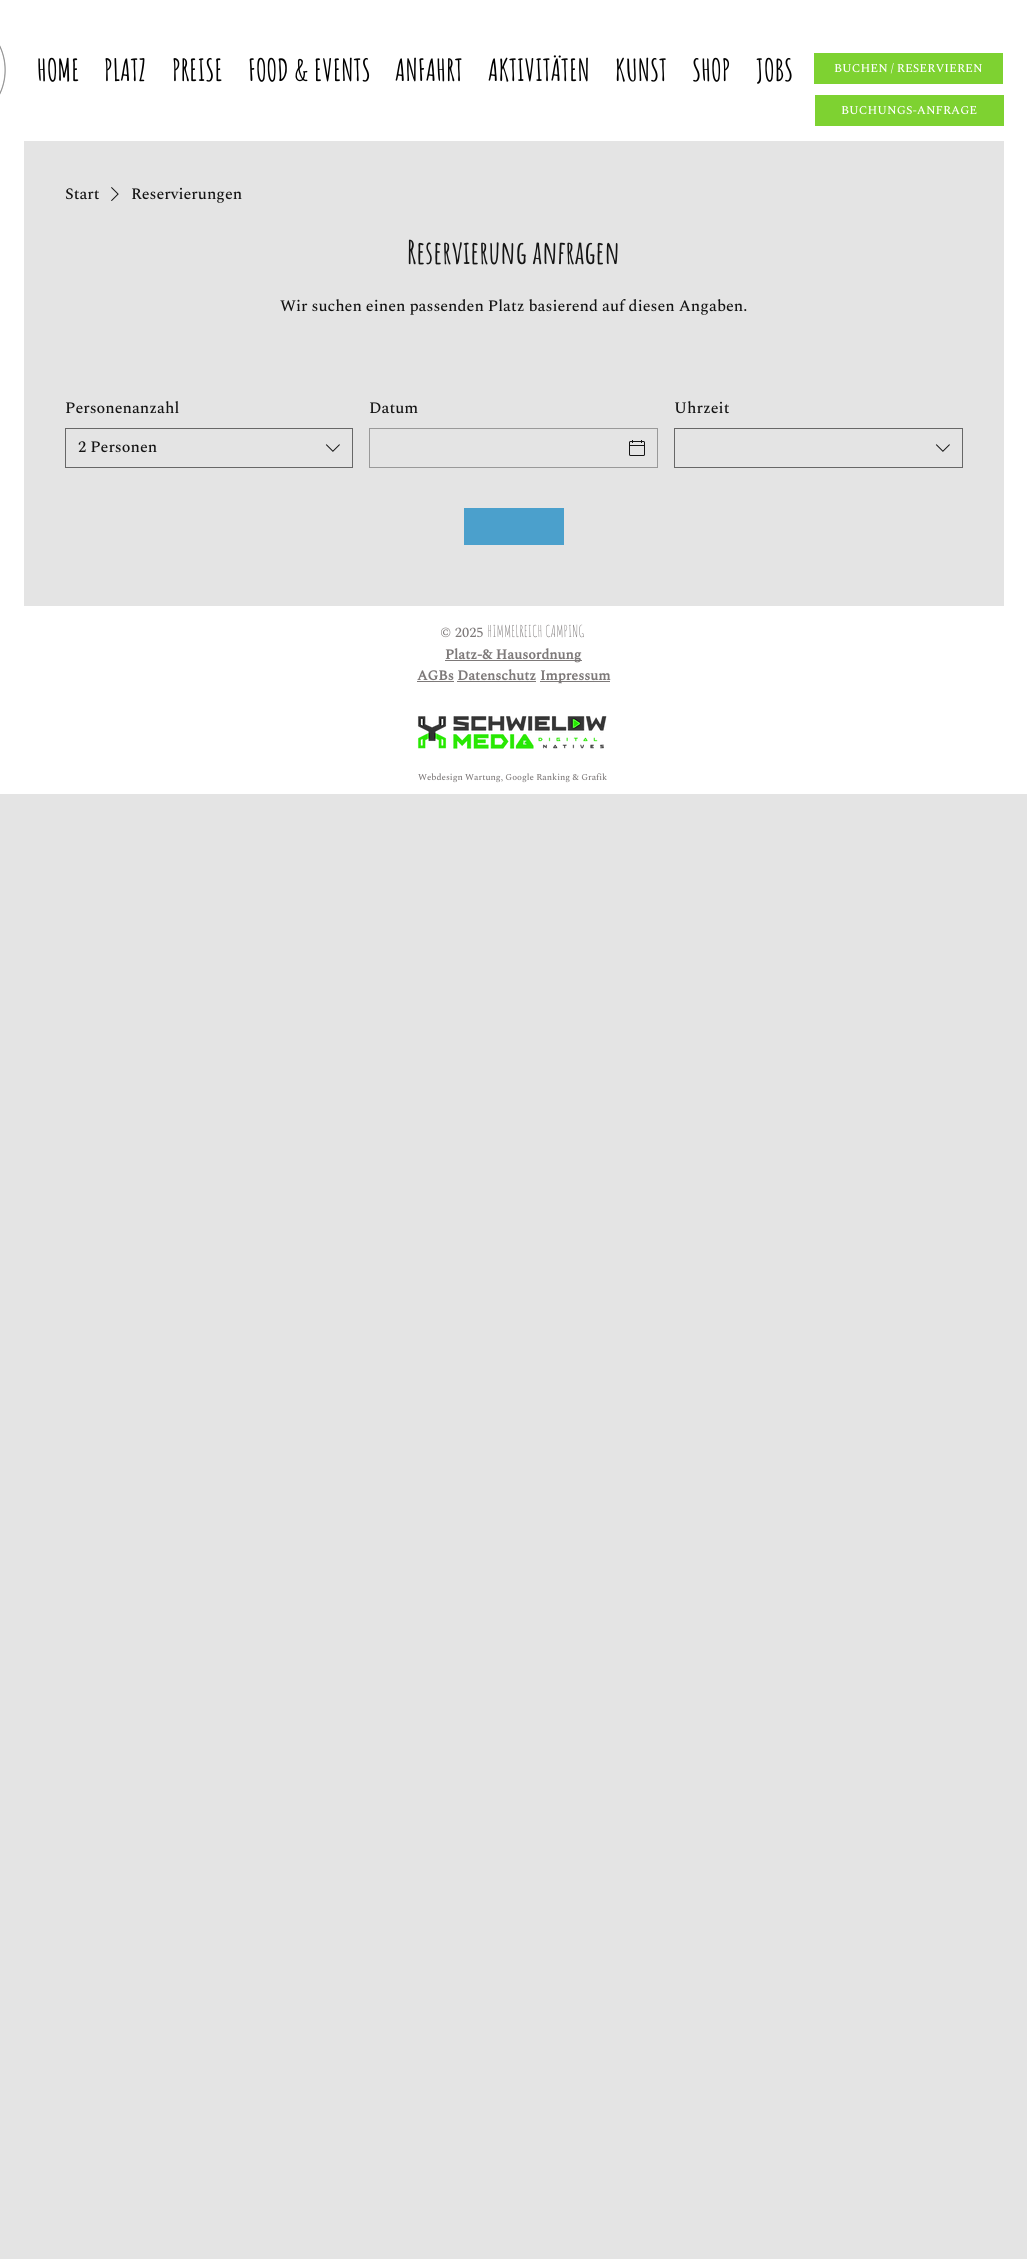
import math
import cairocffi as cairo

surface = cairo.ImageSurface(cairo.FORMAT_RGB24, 1027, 2259)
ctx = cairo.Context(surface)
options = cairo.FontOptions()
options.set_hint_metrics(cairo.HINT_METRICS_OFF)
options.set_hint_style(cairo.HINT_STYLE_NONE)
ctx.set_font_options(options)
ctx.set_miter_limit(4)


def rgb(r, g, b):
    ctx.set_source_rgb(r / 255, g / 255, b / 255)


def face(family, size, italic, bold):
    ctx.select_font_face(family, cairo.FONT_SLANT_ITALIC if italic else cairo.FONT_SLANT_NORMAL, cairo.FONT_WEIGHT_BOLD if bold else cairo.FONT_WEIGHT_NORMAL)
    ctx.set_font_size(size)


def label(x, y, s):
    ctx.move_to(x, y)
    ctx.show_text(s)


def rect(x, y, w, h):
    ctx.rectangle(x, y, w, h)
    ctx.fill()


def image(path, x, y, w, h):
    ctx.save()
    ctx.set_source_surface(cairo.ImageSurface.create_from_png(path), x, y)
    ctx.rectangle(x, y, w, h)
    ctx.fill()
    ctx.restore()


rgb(228, 228, 228)
ctx.paint()
rgb(255, 255, 255)
rect(0, 0, 1027, 794)
image('image0.png', 0, 45, 6, 50)
face('Amatic SC', 30, 0, 1)
rgb(0, 0, 0)
label(37, 81, 'HOME')
label(104, 81, 'PLATZ')
label(172, 81, 'PREISE')
label(248, 81, 'FOOD & EVENTS')
label(395, 81, 'ANFAHRT')
label(488, 81, 'AKTIVITÄTEN')
label(615, 81, 'KUNST')
label(692, 81, 'SHOP')
label(756, 81, 'JOBS')
rgb(126, 210, 49)
rect(814, 53, 189, 31)
face('Spectral Medium', 12, 0, 0)
rgb(255, 255, 255)
label(834, 72, 'BUCHEN / RESERVIEREN')
rgb(126, 210, 49)
rect(815, 95, 189, 31)
rgb(255, 255, 255)
label(841, 114, 'BUCHUNGS-ANFRAGE')
rgb(228, 228, 228)
rect(24, 141, 980, 465)
face('Spectral Medium', 16, 0, 0)
rgb(20, 20, 20)
label(65, 199, 'Start')
image('image1.png', 111, 187, 8, 14)
label(131, 199, 'Reservierungen')
face('Amatic SC', 32, 0, 1)
label(407, 264, 'Reservierung anfragen')
face('Spectral Medium', 16, 0, 0)
label(280, 311, 'Wir suchen einen passenden Platz basierend auf diesen Angaben.')
label(65, 413, 'Personenanzahl')
ctx.rectangle(65.5, 428.5, 287, 39)
rgb(103, 103, 103)
ctx.set_line_width(1)
ctx.stroke()
rgb(20, 20, 20)
label(78, 452, '2 Personen')
image('image2.png', 325, 444, 15, 8)
label(369, 413, 'Datum')
ctx.rectangle(369.5, 428.5, 288, 39)
rgb(153, 153, 153)
ctx.stroke()
image('image3.png', 629, 440, 16, 16)
rgb(20, 20, 20)
label(674, 413, 'Uhrzeit')
ctx.rectangle(674.5, 428.5, 288, 39)
rgb(103, 103, 103)
ctx.stroke()
image('image2.png', 935, 444, 15, 8)
rgb(75, 160, 204)
rect(464, 508, 100, 37)
face('Spectral Medium', 14, 0, 0)
rgb(125, 121, 121)
label(440, 637, '© 2025')
face('Amatic SC', 16, 0, 0)
label(487, 637, 'HIMMELREICH CAMPING')
rect(445, 660, 137, 1)
face('Spectral', 14, 0, 1)
label(445, 659, 'Platz-& Hausordnung')
label(417, 680, 'AGBs Datenschutz')
rect(417, 681, 37, 1)
rect(540, 681, 70, 1)
label(540, 680, 'Impressum')
rect(457, 681, 79, 1)
image('image4.png', 417, 716, 190, 33)
face('Spectral Medium', 9, 0, 0)
label(418, 780, 'Webdesign Wartung, Google Ranking & Grafik')
surface.write_to_png('render.png')
